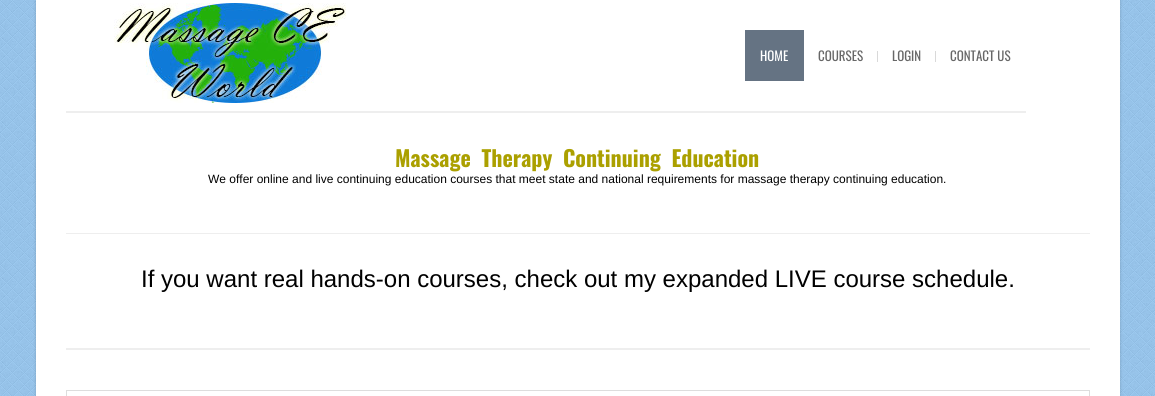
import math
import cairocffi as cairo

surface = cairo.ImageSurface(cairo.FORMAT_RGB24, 1155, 396)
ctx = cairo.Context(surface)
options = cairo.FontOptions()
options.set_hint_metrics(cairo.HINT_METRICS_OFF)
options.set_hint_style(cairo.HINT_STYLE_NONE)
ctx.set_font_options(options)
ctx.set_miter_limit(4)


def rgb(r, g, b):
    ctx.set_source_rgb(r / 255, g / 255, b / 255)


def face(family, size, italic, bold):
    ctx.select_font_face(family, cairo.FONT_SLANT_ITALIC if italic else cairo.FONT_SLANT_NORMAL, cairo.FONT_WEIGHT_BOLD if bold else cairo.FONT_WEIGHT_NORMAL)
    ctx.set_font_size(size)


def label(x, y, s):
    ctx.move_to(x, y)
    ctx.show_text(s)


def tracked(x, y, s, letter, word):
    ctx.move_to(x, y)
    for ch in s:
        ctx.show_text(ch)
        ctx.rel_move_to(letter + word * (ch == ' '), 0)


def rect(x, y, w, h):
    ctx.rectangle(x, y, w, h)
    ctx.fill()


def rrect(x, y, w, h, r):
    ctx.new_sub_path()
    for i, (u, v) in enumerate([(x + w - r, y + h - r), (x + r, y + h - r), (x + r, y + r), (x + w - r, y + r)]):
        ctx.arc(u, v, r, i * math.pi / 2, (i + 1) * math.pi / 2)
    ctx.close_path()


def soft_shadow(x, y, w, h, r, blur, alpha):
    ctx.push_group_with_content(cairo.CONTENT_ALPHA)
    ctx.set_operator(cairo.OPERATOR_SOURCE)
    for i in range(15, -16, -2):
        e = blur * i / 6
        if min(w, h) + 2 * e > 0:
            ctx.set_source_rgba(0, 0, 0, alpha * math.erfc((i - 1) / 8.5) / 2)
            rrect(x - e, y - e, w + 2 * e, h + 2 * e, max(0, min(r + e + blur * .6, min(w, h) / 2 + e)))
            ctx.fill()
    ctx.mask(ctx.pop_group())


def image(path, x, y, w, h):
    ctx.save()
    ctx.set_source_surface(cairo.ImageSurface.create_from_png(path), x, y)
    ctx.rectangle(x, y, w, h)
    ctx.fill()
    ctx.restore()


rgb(255, 255, 255)
ctx.paint()
image('image0.png', 0, 0, 1155, 396)
rgb(0, 0, 0)
soft_shadow(36, 0, 1084, 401, 0, 1.5, 0.2)
rgb(255, 255, 255)
rect(36, 0, 1084, 396)
rgb(238, 238, 238)
rect(66, 111, 960, 2)
image('image1.png', 114, 3, 232, 100)
rgb(101, 115, 131)
rect(745, 30, 59, 51)
face('Oswald', 13, 0, 0)
rgb(255, 255, 255)
label(760, 61, 'HOME')
rgb(217, 217, 217)
rect(877, 51, 1, 11)
rgb(103, 103, 103)
label(818, 61, 'COURSES')
rgb(217, 217, 217)
rect(935, 51, 1, 11)
rgb(103, 103, 103)
label(892, 61, 'LOGIN')
label(950, 61, 'CONTACT US')
rgb(238, 238, 238)
rect(66, 233, 1024, 1)
face('Oswald', 22, 0, 1)
rgb(171, 160, 0)
tracked(395, 167, 'Massage Therapy Continuing Education', 0, 5)
face('Liberation Sans', 12, 0, 0)
rgb(0, 0, 0)
label(208, 183, 'We offer online and live continuing education courses that meet state and national requirements for massage therapy continuing education.')
face('Liberation Sans', 24, 0, 0)
label(141, 287, 'If you want real hands-on courses, check out my expanded LIVE course schedule.')
rgb(238, 238, 238)
rect(66, 348, 1024, 2)
rgb(221, 221, 221)
rect(66, 390, 1024, 1)
rect(1089, 390, 1, 6)
rect(66, 390, 1, 6)
surface.write_to_png('render.png')
